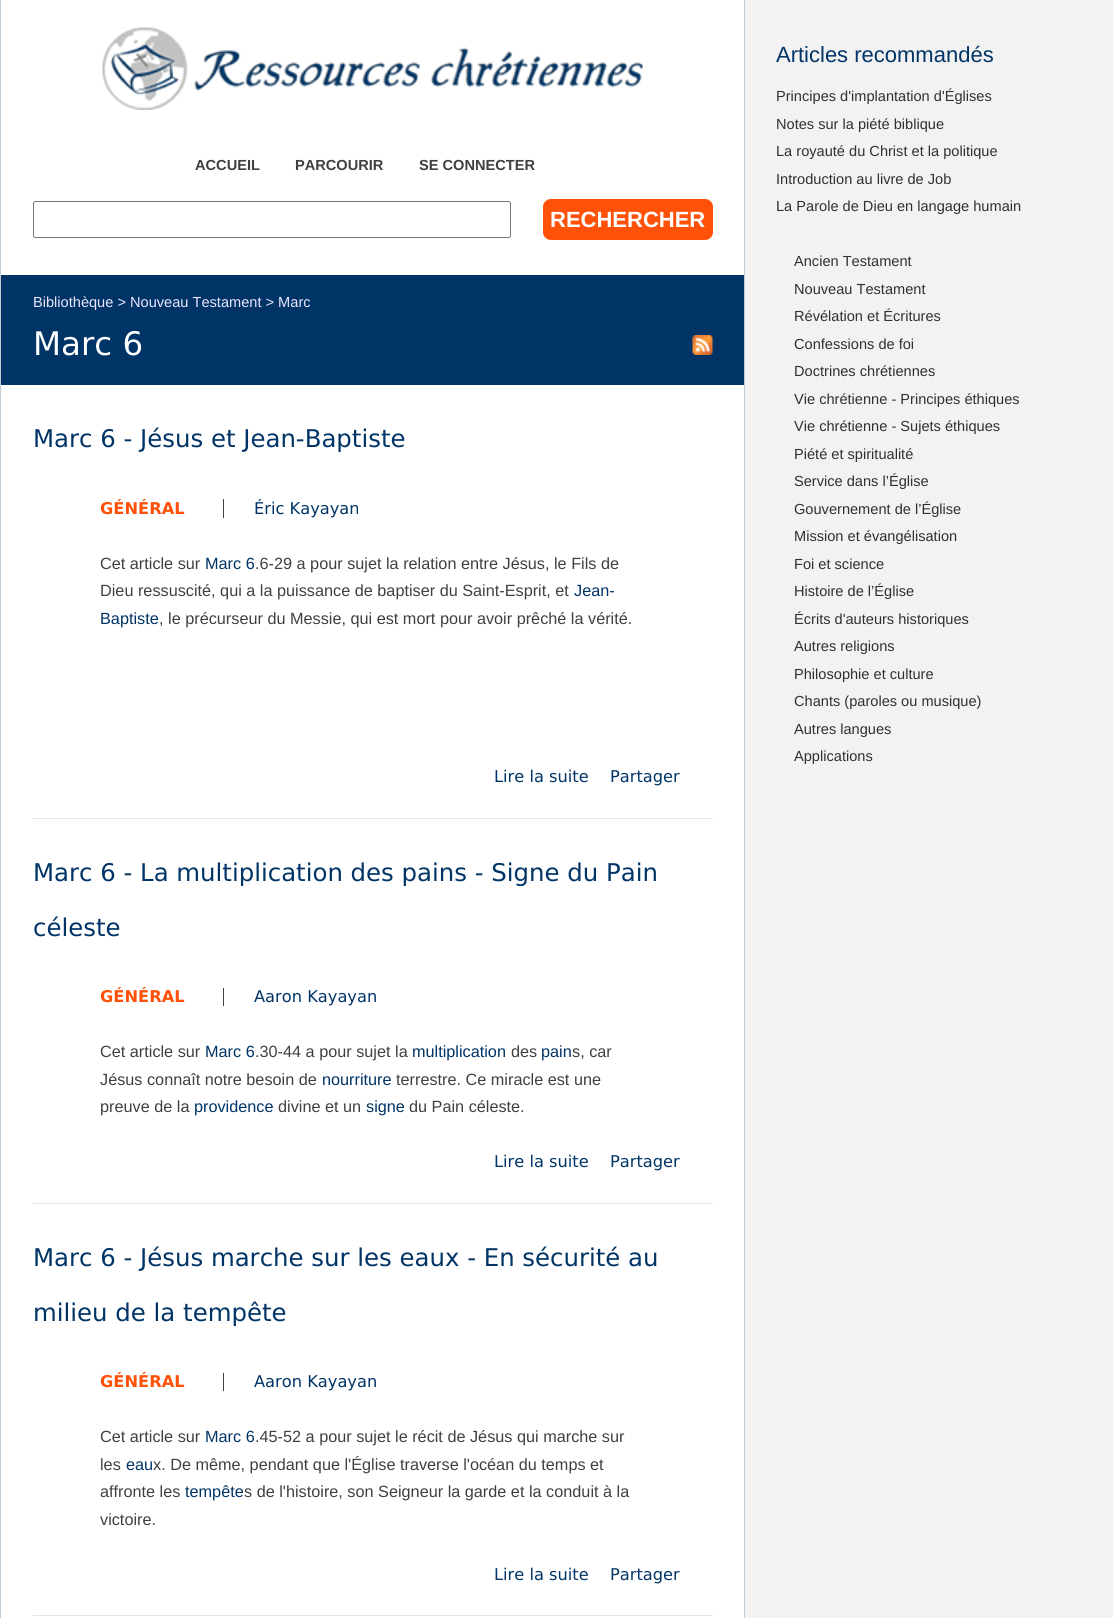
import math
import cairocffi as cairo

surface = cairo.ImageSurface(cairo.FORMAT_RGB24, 1113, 1618)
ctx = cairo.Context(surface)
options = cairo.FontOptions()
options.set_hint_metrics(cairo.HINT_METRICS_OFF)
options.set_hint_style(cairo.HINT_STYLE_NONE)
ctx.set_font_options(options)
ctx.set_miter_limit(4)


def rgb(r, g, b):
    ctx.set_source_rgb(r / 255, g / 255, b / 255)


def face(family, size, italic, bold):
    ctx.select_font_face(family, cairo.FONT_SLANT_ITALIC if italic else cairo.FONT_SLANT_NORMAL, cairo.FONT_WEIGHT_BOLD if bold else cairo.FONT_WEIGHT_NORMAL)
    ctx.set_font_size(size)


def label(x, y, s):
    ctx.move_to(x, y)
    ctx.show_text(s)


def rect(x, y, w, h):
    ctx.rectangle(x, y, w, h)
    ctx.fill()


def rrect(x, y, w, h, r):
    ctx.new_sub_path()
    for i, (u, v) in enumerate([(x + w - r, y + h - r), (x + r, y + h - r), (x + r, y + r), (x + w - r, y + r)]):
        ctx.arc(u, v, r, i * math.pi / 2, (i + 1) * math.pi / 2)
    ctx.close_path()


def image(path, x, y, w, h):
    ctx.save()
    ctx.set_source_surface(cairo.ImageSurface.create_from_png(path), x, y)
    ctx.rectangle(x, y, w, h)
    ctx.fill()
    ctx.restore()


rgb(242, 242, 242)
ctx.paint()
rgb(255, 255, 255)
rect(1, 0, 743, 1618)
rgb(191, 204, 217)
rect(744, 0, 1, 1618)
rect(0, 0, 1, 1618)
image('image0.png', 102, 27, 541, 83)
face('Liberation Sans', 14.6, 0, 1)
rgb(64, 64, 64)
label(195, 170, 'ACCUEIL')
label(295, 170, 'PARCOURIR')
label(419, 170, 'SE CONNECTER')
rrect(33.5, 201.5, 477, 36, 2)
rgb(118, 118, 118)
ctx.set_line_width(1)
ctx.stroke()
rgb(255, 82, 8)
rrect(543, 199, 170, 41, 8)
ctx.fill()
face('Liberation Sans', 22, 0, 1)
rgb(255, 255, 255)
label(550, 227, 'RECHERCHER')
rgb(0, 52, 102)
rect(1, 275, 743, 110)
face('Liberation Sans', 14.6, 0, 0)
rgb(235, 230, 255)
label(33, 307, 'Bibliothèque > Nouveau Testament > Marc')
face('DejaVu Sans', 32.5, 0, 0)
rgb(255, 255, 255)
label(33, 355, 'Marc 6')
image('image1.png', 692, 335, 21, 20)
rgb(223, 230, 236)
rect(33, 818, 680, 1)
face('DejaVu Sans', 24.4, 0, 0)
rgb(0, 52, 102)
label(33, 447, 'Marc 6 - Jésus et Jean-Baptiste')
face('DejaVu Sans', 16.25, 0, 1)
rgb(255, 82, 8)
label(100, 514, 'GÉNÉRAL')
face('DejaVu Sans', 16.25, 0, 0)
rgb(0, 52, 102)
label(254, 514, 'Éric Kayayan')
rgb(64, 64, 64)
rect(223, 499, 1, 19)
face('Liberation Sans', 16.25, 0, 0)
label(100, 569, 'Cet article sur')
rgb(0, 52, 102)
label(205, 569, 'Marc 6')
rgb(64, 64, 64)
label(255, 569, '.6-29 a pour sujet la relation entre Jésus, le Fils de')
label(100, 596, 'Dieu ressuscité, qui a la puissance de baptiser du Saint-Esprit, et')
rgb(0, 52, 102)
label(574, 596, 'Jean-')
label(100, 624, 'Baptiste')
rgb(64, 64, 64)
label(159, 624, ', le précurseur du Messie, qui est mort pour avoir prêché la vérité.')
face('DejaVu Sans', 16.25, 0, 0)
rgb(0, 52, 102)
label(494, 782, 'Lire la suite')
label(610, 782, 'Partager')
rgb(223, 230, 236)
rect(33, 1203, 680, 1)
face('DejaVu Sans', 24.4, 0, 0)
rgb(0, 52, 102)
label(33, 881, 'Marc 6 - La multiplication des pains - Signe du Pain')
label(33, 936, 'céleste')
face('DejaVu Sans', 16.25, 0, 1)
rgb(255, 82, 8)
label(100, 1002, 'GÉNÉRAL')
face('DejaVu Sans', 16.25, 0, 0)
rgb(0, 52, 102)
label(254, 1002, 'Aaron Kayayan')
rgb(64, 64, 64)
rect(223, 988, 1, 18)
face('Liberation Sans', 16.25, 0, 0)
label(100, 1057, 'Cet article sur')
rgb(0, 52, 102)
label(205, 1057, 'Marc 6')
rgb(64, 64, 64)
label(255, 1057, '.30-44 a pour sujet la')
rgb(0, 52, 102)
label(412, 1057, 'multiplication')
rgb(64, 64, 64)
label(511, 1057, 'des')
rgb(0, 52, 102)
label(541, 1057, 'pain')
rgb(64, 64, 64)
label(572, 1057, 's, car')
label(100, 1085, 'Jésus connaît notre besoin de')
rgb(0, 52, 102)
label(322, 1085, 'nourriture')
rgb(64, 64, 64)
label(396, 1085, 'terrestre. Ce miracle est une')
label(100, 1112, 'preuve de la')
rgb(0, 52, 102)
label(194, 1112, 'providence')
rgb(64, 64, 64)
label(278, 1112, 'divine et un')
rgb(0, 52, 102)
label(366, 1112, 'signe')
rgb(64, 64, 64)
label(409, 1112, 'du Pain céleste.')
face('DejaVu Sans', 16.25, 0, 0)
rgb(0, 52, 102)
label(494, 1167, 'Lire la suite')
label(610, 1167, 'Partager')
rgb(223, 230, 236)
rect(33, 1615, 680, 1)
face('DejaVu Sans', 24.4, 0, 0)
rgb(0, 52, 102)
label(33, 1266, 'Marc 6 - Jésus marche sur les eaux - En sécurité au')
label(33, 1321, 'milieu de la tempête')
face('DejaVu Sans', 16.25, 0, 1)
rgb(255, 82, 8)
label(100, 1387, 'GÉNÉRAL')
face('DejaVu Sans', 16.25, 0, 0)
rgb(0, 52, 102)
label(254, 1387, 'Aaron Kayayan')
rgb(64, 64, 64)
rect(223, 1373, 1, 18)
face('Liberation Sans', 16.25, 0, 0)
label(100, 1442, 'Cet article sur')
rgb(0, 52, 102)
label(205, 1442, 'Marc 6')
rgb(64, 64, 64)
label(255, 1442, '.45-52 a pour sujet le récit de Jésus qui marche sur')
label(100, 1470, 'les')
rgb(0, 52, 102)
label(126, 1470, 'eau')
rgb(64, 64, 64)
label(153, 1470, 'x. De même, pendant que l\'Église traverse l\'océan du temps et')
label(100, 1497, 'affronte les')
rgb(0, 52, 102)
label(185, 1497, 'tempête')
rgb(64, 64, 64)
label(244, 1497, 's de l\'histoire, son Seigneur la garde et la conduit à la')
label(100, 1525, 'victoire.')
face('DejaVu Sans', 16.25, 0, 0)
rgb(0, 52, 102)
label(494, 1580, 'Lire la suite')
label(610, 1580, 'Partager')
face('Liberation Sans', 22, 0, 0)
label(776, 62, 'Articles recommandés')
face('Liberation Sans', 14.6, 0, 0)
rgb(48, 48, 48)
label(776, 101, 'Principes d\'implantation d\'Églises')
label(776, 129, 'Notes sur la piété biblique')
label(776, 156, 'La royauté du Christ et la politique')
label(776, 184, 'Introduction au livre de Job')
label(776, 211, 'La Parole de Dieu en langage humain')
label(794, 266, 'Ancien Testament')
label(794, 294, 'Nouveau Testament')
label(794, 321, 'Révélation et Écritures')
label(794, 349, 'Confessions de foi')
label(794, 376, 'Doctrines chrétiennes')
label(794, 404, 'Vie chrétienne - Principes éthiques')
label(794, 431, 'Vie chrétienne - Sujets éthiques')
label(794, 459, 'Piété et spiritualité')
label(794, 486, 'Service dans l’Église')
label(794, 514, 'Gouvernement de l’Église')
label(794, 541, 'Mission et évangélisation')
label(794, 569, 'Foi et science')
label(794, 596, 'Histoire de l’Église')
label(794, 624, 'Écrits d\'auteurs historiques')
label(794, 651, 'Autres religions')
label(794, 679, 'Philosophie et culture')
label(794, 706, 'Chants (paroles ou musique)')
label(794, 734, 'Autres langues')
label(794, 761, 'Applications')
surface.write_to_png('render.png')
